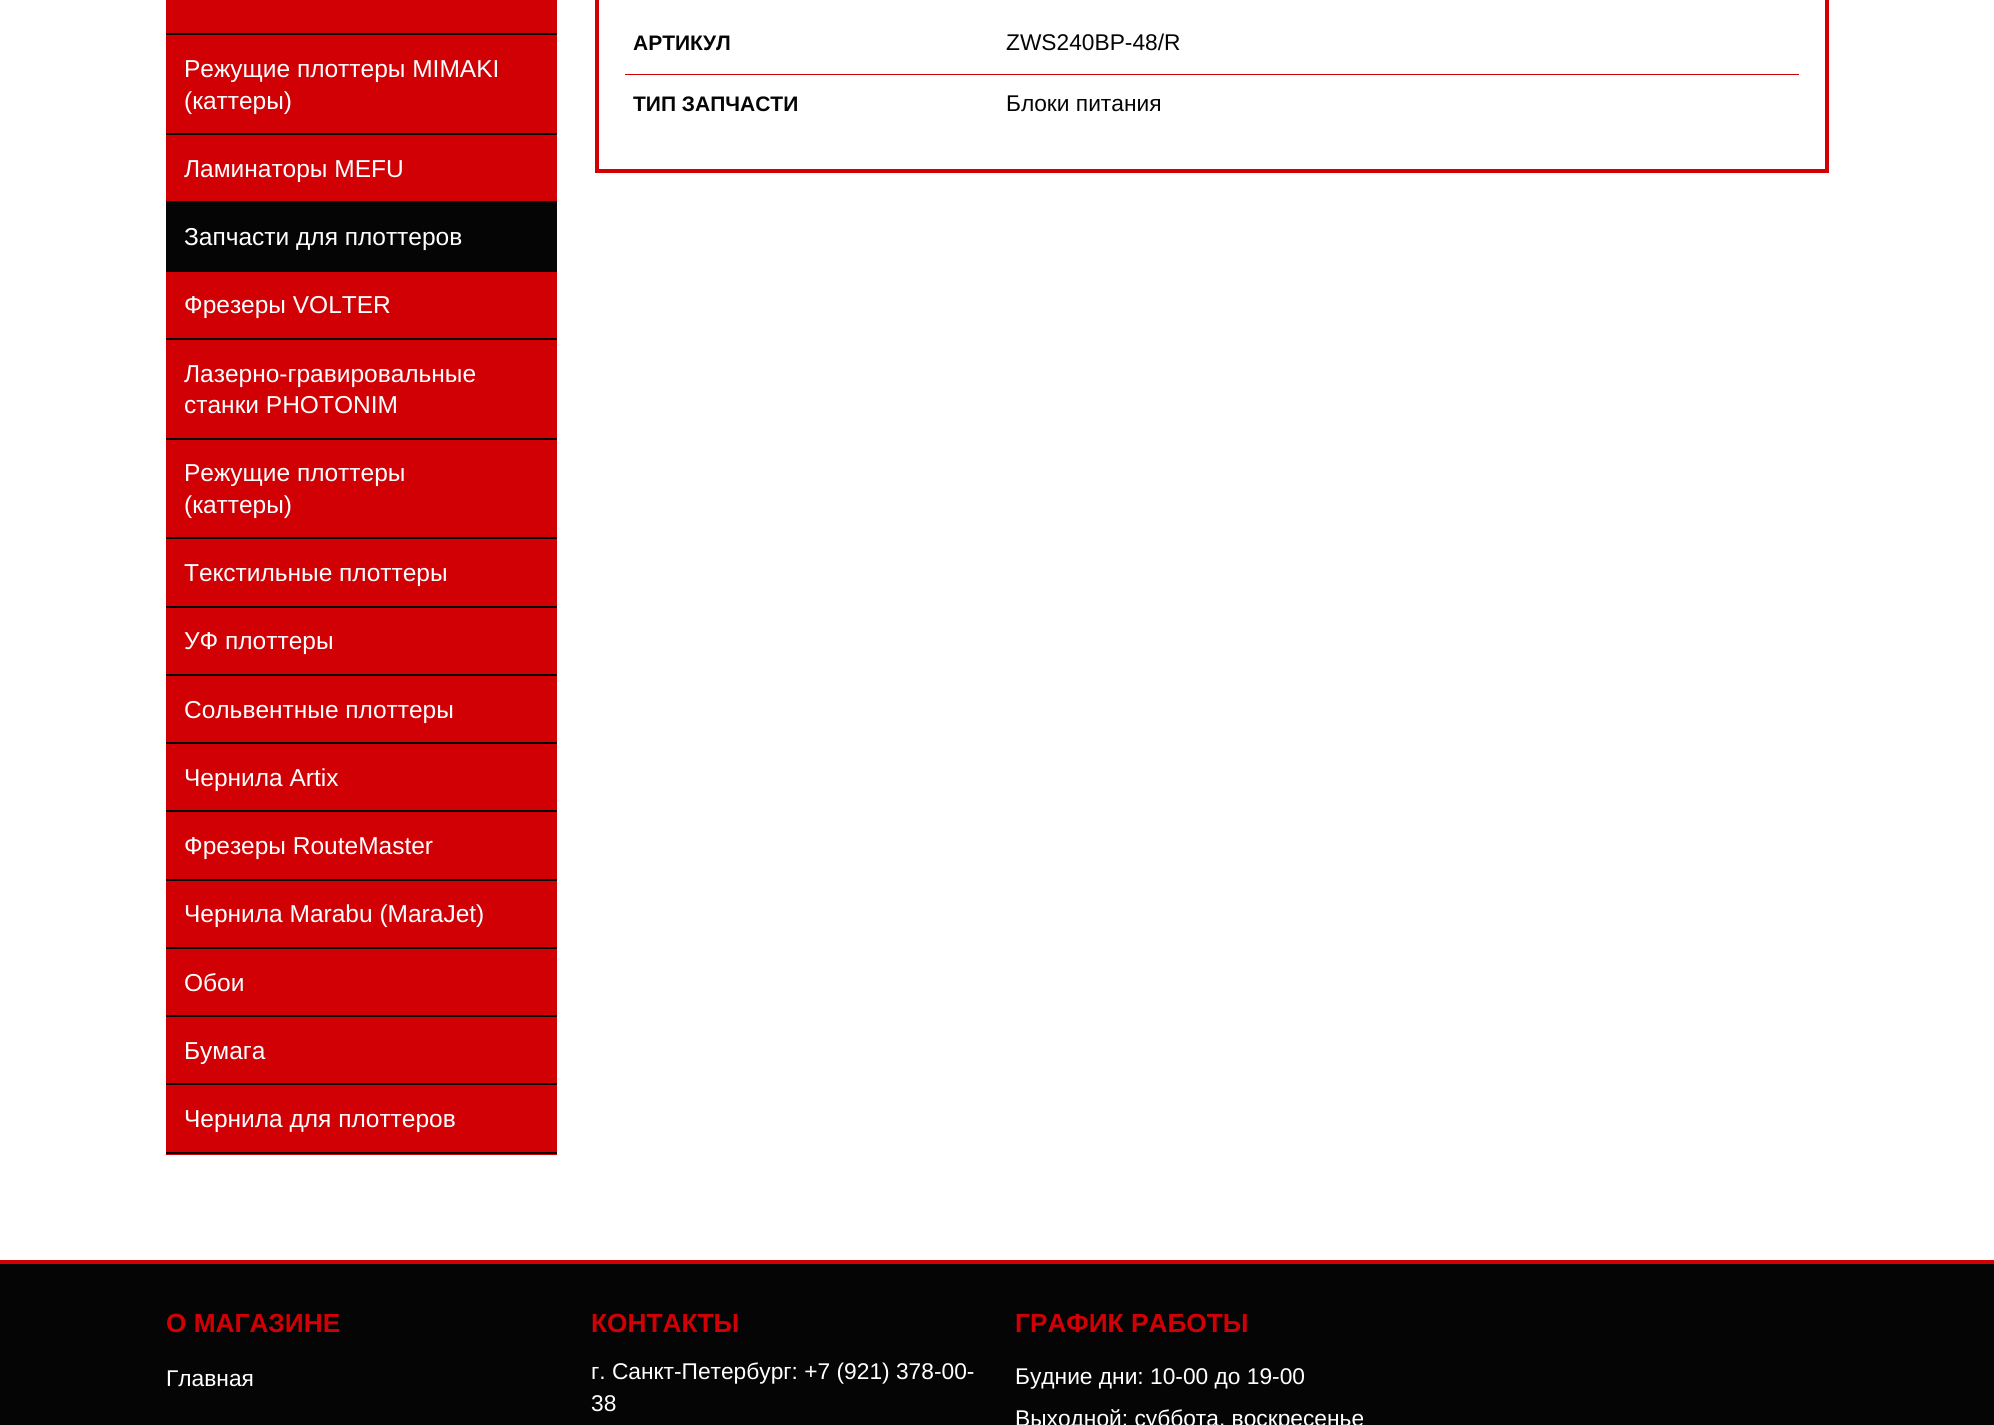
import math
import cairocffi as cairo

surface = cairo.ImageSurface(cairo.FORMAT_RGB24, 1994, 1425)
ctx = cairo.Context(surface)
options = cairo.FontOptions()
options.set_hint_metrics(cairo.HINT_METRICS_OFF)
options.set_hint_style(cairo.HINT_STYLE_NONE)
ctx.set_font_options(options)
ctx.set_miter_limit(4)


def rgb(r, g, b):
    ctx.set_source_rgb(r / 255, g / 255, b / 255)


def face(family, size, italic, bold):
    ctx.select_font_face(family, cairo.FONT_SLANT_ITALIC if italic else cairo.FONT_SLANT_NORMAL, cairo.FONT_WEIGHT_BOLD if bold else cairo.FONT_WEIGHT_NORMAL)
    ctx.set_font_size(size)


def label(x, y, s):
    ctx.move_to(x, y)
    ctx.show_text(s)


def rect(x, y, w, h):
    ctx.rectangle(x, y, w, h)
    ctx.fill()


rgb(255, 255, 255)
ctx.paint()
rgb(208, 0, 4)
rect(166, 0, 391, 1155)
rgb(5, 5, 5)
rect(166, 33, 391, 2)
rect(166, 133, 391, 2)
face('Liberation Sans', 24.5, 0, 0)
rgb(255, 255, 255)
label(184, 77, 'Режущие плоттеры MIMAKI')
label(184, 109, '(каттеры)')
rgb(5, 5, 5)
rect(166, 201, 391, 71)
rgb(255, 255, 255)
label(184, 177, 'Ламинаторы MEFU')
label(184, 245, 'Запчасти для плоттеров')
rgb(5, 5, 5)
rect(166, 338, 391, 2)
rgb(255, 255, 255)
label(184, 313, 'Фрезеры VOLTER')
rgb(5, 5, 5)
rect(166, 438, 391, 2)
rgb(255, 255, 255)
label(184, 382, 'Лазерно-гравировальные')
label(184, 413, 'станки PHOTONIM')
rgb(5, 5, 5)
rect(166, 537, 391, 2)
rgb(255, 255, 255)
label(184, 481, 'Режущие плоттеры')
label(184, 513, '(каттеры)')
rgb(5, 5, 5)
rect(166, 606, 391, 2)
rgb(255, 255, 255)
label(184, 581, 'Текстильные плоттеры')
rgb(5, 5, 5)
rect(166, 674, 391, 2)
rgb(255, 255, 255)
label(184, 649, 'УФ плоттеры')
rgb(5, 5, 5)
rect(166, 742, 391, 2)
rgb(255, 255, 255)
label(184, 718, 'Сольвентные плоттеры')
rgb(5, 5, 5)
rect(166, 810, 391, 2)
rgb(255, 255, 255)
label(184, 786, 'Чернила Artix')
rgb(5, 5, 5)
rect(166, 879, 391, 2)
rgb(255, 255, 255)
label(184, 854, 'Фрезеры RouteMaster')
rgb(5, 5, 5)
rect(166, 947, 391, 2)
rgb(255, 255, 255)
label(184, 922, 'Чернила Marabu (MaraJet)')
rgb(5, 5, 5)
rect(166, 1015, 391, 2)
rgb(255, 255, 255)
label(184, 991, 'Обои')
rgb(5, 5, 5)
rect(166, 1083, 391, 2)
rgb(255, 255, 255)
label(184, 1059, 'Бумага')
rgb(5, 5, 5)
rect(166, 1152, 391, 2)
rgb(255, 255, 255)
label(184, 1127, 'Чернила для плоттеров')
ctx.rectangle(597, -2, 1230, 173)
rgb(208, 0, 4)
ctx.set_line_width(4)
ctx.stroke()
rect(625, 74, 1174, 1)
face('Liberation Sans', 21, 0, 1)
rgb(5, 5, 5)
label(633, 50, 'АРТИКУЛ')
face('Liberation Sans', 22.75, 0, 0)
label(1006, 50, 'ZWS240BP-48/R')
face('Liberation Sans', 21, 0, 1)
label(633, 111, 'ТИП ЗАПЧАСТИ')
face('Liberation Sans', 22.75, 0, 0)
label(1006, 111, 'Блоки питания')
rect(0, 1264, 1994, 161)
rgb(208, 0, 4)
rect(0, 1260, 1994, 4)
face('Liberation Sans', 26.25, 0, 1)
label(166, 1332, 'О МАГАЗИНЕ')
face('Liberation Sans', 22.75, 0, 0)
rgb(255, 255, 255)
label(166, 1386, 'Главная')
face('Liberation Sans', 26.25, 0, 1)
rgb(208, 0, 4)
label(591, 1332, 'КОНТАКТЫ')
face('Liberation Sans', 22.75, 0, 0)
rgb(255, 255, 255)
label(591, 1379, 'г. Санкт-Петербург: +7 (921) 378-00-')
label(591, 1411, '38')
face('Liberation Sans', 26.25, 0, 1)
rgb(208, 0, 4)
label(1015, 1332, 'ГРАФИК РАБОТЫ')
face('Liberation Sans', 22.75, 0, 0)
rgb(255, 255, 255)
label(1015, 1384, 'Будние дни: 10-00 до 19-00')
label(1015, 1426, 'Выходной: суббота, воскресенье')
surface.write_to_png('render.png')
